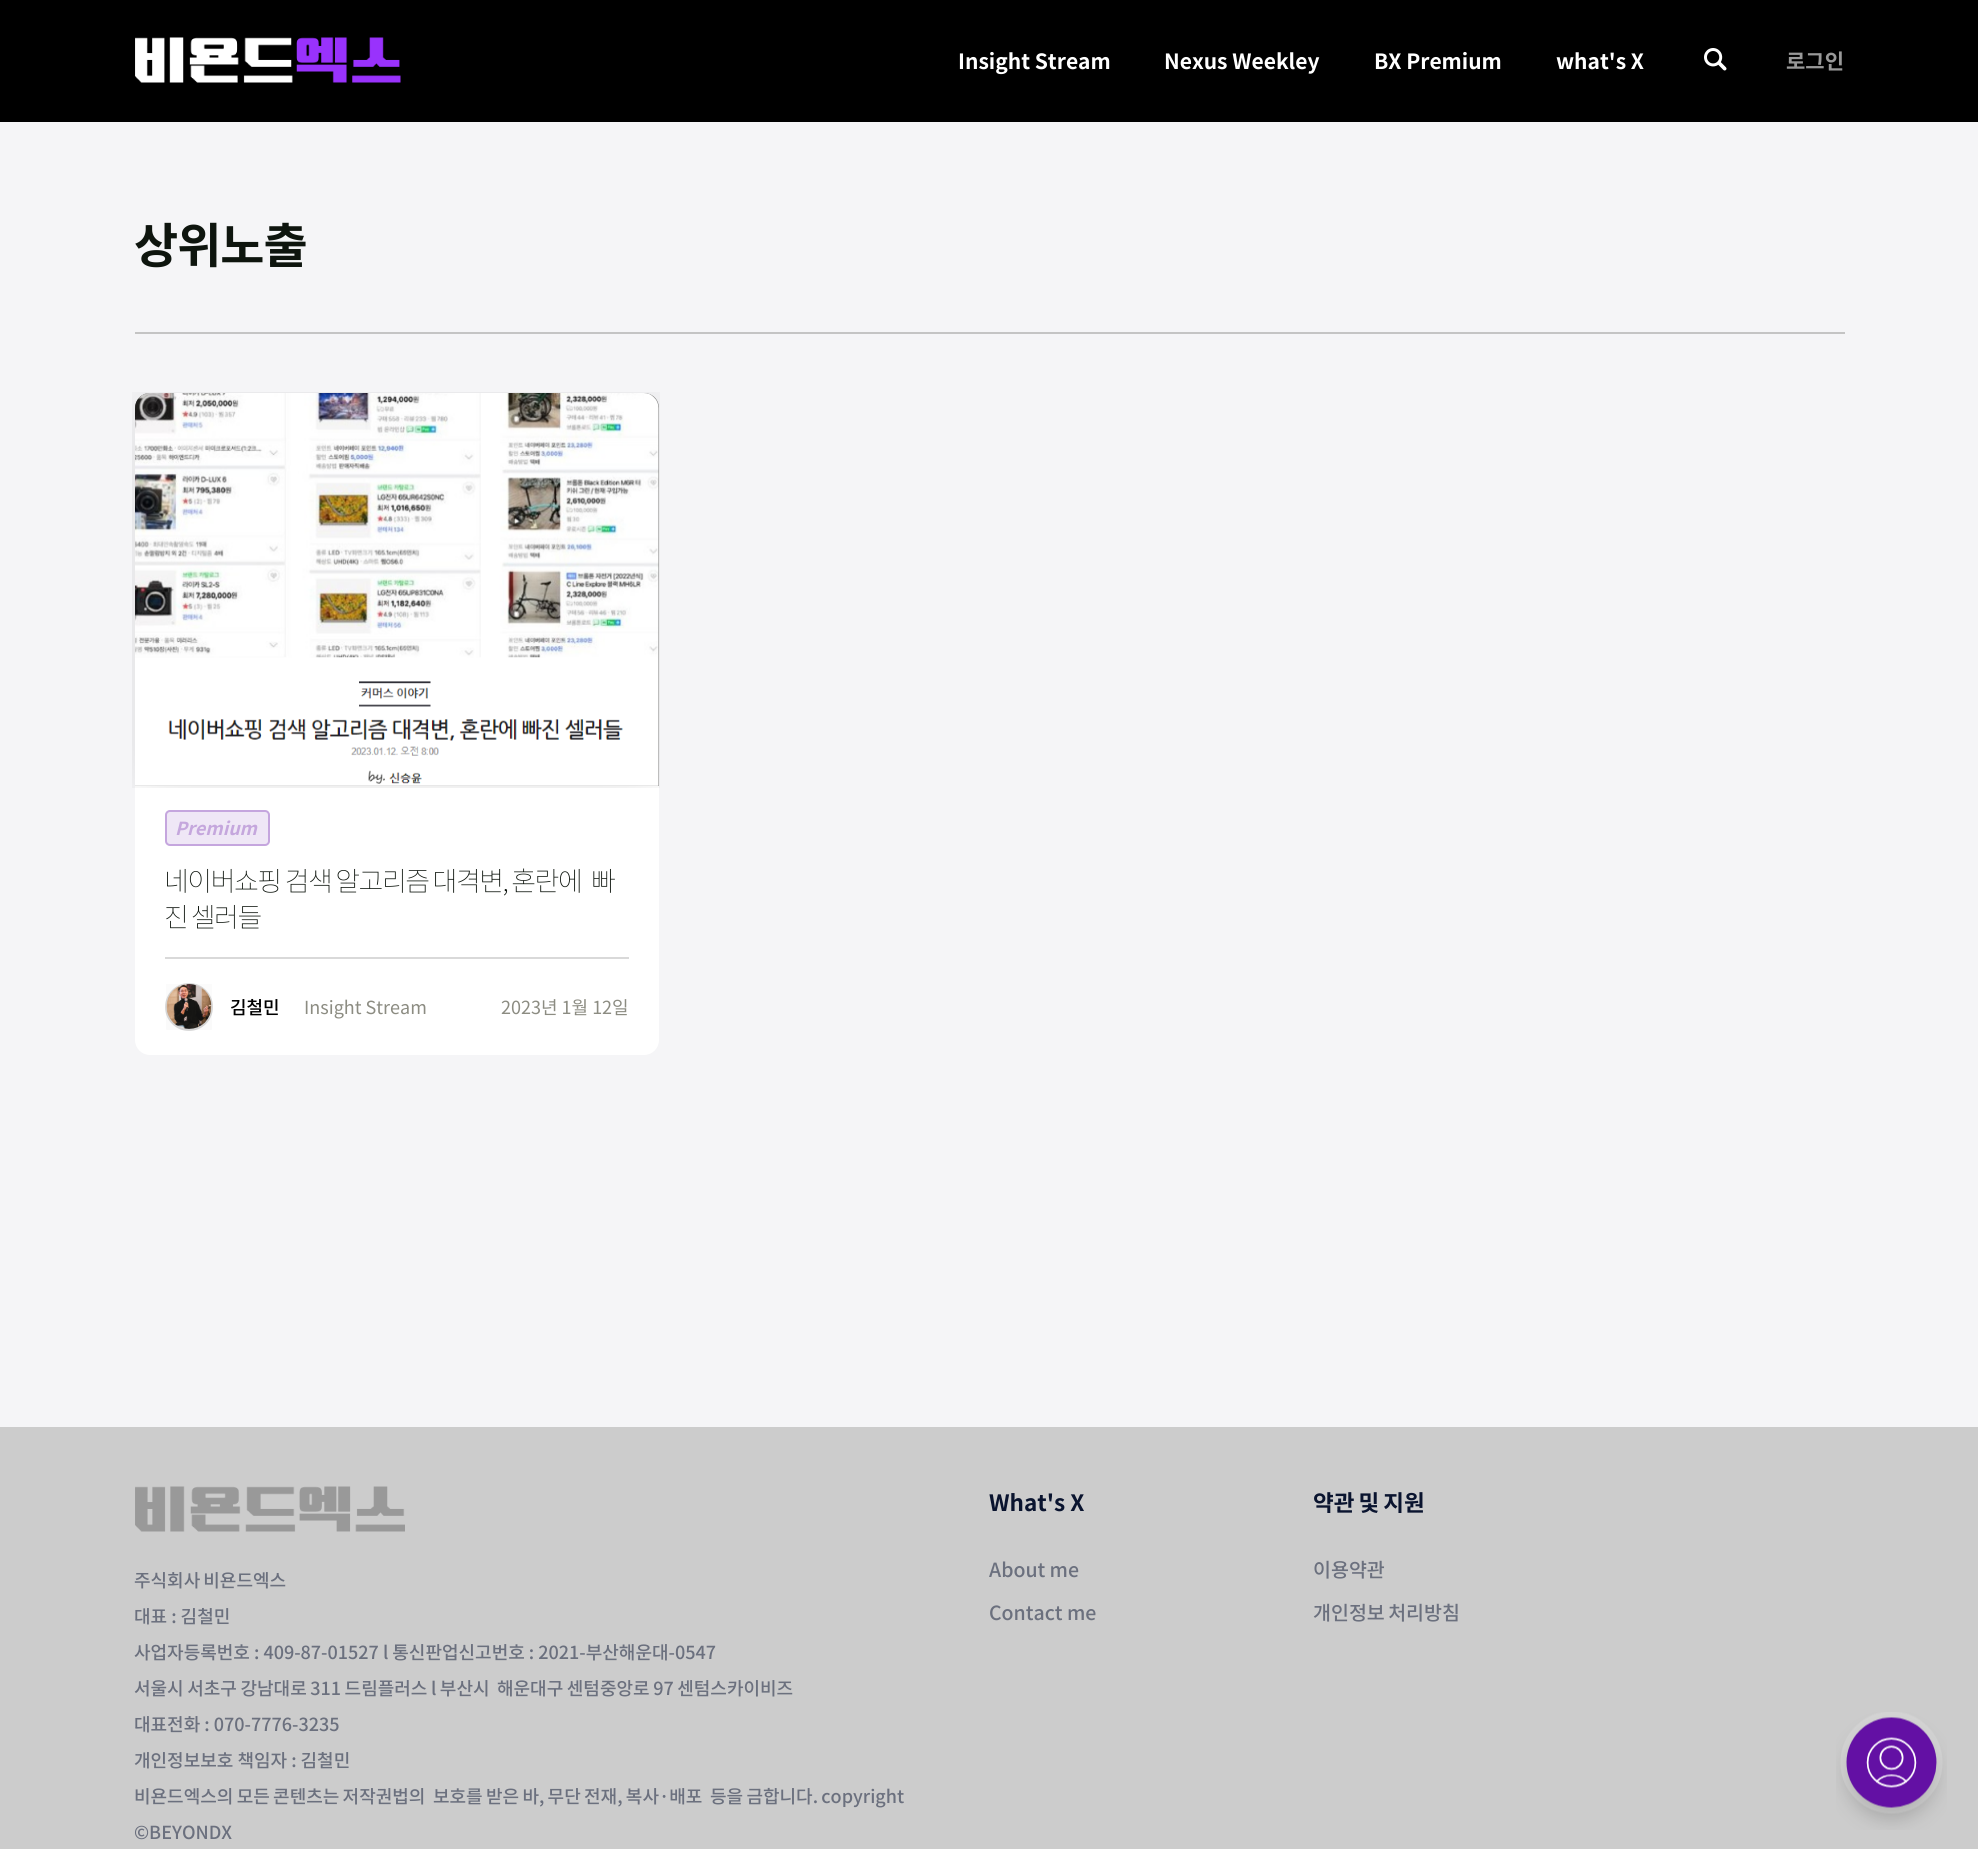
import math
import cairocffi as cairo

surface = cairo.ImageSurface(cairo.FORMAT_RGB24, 1978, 1849)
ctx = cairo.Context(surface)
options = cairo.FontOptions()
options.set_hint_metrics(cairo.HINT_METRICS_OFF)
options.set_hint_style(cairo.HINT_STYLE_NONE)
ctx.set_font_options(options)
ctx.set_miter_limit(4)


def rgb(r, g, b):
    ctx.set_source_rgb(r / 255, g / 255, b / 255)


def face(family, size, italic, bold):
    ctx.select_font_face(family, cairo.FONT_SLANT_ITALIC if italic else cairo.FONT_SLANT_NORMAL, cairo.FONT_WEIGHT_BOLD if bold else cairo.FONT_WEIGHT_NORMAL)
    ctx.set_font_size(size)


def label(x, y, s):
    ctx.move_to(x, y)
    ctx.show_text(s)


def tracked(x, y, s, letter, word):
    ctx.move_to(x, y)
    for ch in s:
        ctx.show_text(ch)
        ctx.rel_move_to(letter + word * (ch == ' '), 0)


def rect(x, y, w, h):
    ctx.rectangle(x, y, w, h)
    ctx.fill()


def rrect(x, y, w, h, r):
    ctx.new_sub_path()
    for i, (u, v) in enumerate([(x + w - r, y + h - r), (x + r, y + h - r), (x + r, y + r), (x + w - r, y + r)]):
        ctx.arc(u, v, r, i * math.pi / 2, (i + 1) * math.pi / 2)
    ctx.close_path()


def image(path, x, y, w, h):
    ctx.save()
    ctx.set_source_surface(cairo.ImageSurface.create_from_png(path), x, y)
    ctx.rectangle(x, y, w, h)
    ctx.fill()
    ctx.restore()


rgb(245, 245, 247)
ctx.paint()
rgb(0, 0, 0)
rect(0, 0, 1978, 122)
image('image0.png', 135, 37, 266, 46)
face('Noto Sans KR', 21, 0, 1)
rgb(255, 255, 255)
label(958, 69, 'Insight Stream')
label(1164, 69, 'Nexus Weekley')
label(1374, 69, 'BX Premium')
label(1556, 69, 'what\'s X')
image('image1.png', 1704, 48, 23, 23)
rgb(153, 153, 153)
label(1786, 69, '로그인')
rgb(196, 196, 196)
rect(135, 332, 1710, 2)
face('Noto Sans KR', 48, 0, 1)
rgb(14, 21, 14)
tracked(134, 263, '상위노출', -1, 0)
rgb(255, 255, 255)
rrect(135, 393, 524, 662, 15)
ctx.fill()
ctx.set_source_rgba(0, 0, 0, 0.5)
ctx.new_path()
ctx.move_to(150, 393)
ctx.line_to(644, 393)
ctx.curve_to(652.5, 393, 659, 399.5, 659, 408)
ctx.line_to(659, 786)
ctx.line_to(135, 786)
ctx.line_to(135, 408)
ctx.curve_to(135, 399.5, 141.5, 393, 150, 393)
ctx.close_path()
ctx.fill()
image('image2.png', 132, 392, 528, 396)
rgb(239, 231, 246)
rrect(165, 810, 105, 36, 5)
ctx.fill()
rrect(166, 811, 103, 34, 4)
ctx.set_source_rgba(0.388, 0.063, 0.643, 0.3)
ctx.stroke()
face('Noto Sans KR', 18, 1, 1)
rgb(197, 167, 221)
label(175, 835, 'Premium')
face('Noto Sans KR Thin', 27, 0, 0)
rgb(14, 21, 14)
tracked(164, 891, '네이버쇼핑 검색 알고리즘 대격변, 혼란에', -1.5, -0.5)
tracked(591, 891, '빠', -1.5, -0.5)
tracked(164, 927, '진 셀러들', -1.5, -1)
rgb(217, 217, 217)
rect(165, 957, 464, 2)
ctx.new_path()
ctx.arc(189, 1007, 23, 0, 2 * math.pi)
ctx.fill_preserve()
ctx.stroke()
image('image3.png', 166, 984, 46, 46)
face('Noto Sans KR Medium', 18, 0, 0)
rgb(0, 0, 0)
label(230, 1014, '김철민')
face('Noto Sans KR', 18, 0, 0)
rgb(140, 140, 130)
label(304, 1014, 'Insight Stream')
label(501, 1014, '2023년 1월 12일')
rgb(204, 204, 204)
rect(0, 1427, 1978, 422)
face('Noto Sans KR', 22.5, 0, 1)
rgb(10, 20, 47)
label(989, 1511, 'What\'s X')
face('Noto Sans KR Medium', 19.5, 0, 0)
rgb(107, 112, 126)
label(989, 1577, 'About me')
label(989, 1620, 'Contact me')
face('Noto Sans KR', 22.5, 0, 1)
rgb(10, 20, 47)
tracked(1313, 1511, '약관 및 지원', 0, -1)
face('Noto Sans KR Medium', 19.5, 0, 0)
rgb(107, 112, 126)
label(1313, 1577, '이용약관')
tracked(1313, 1620, '개인정보 처리방침', 0, -1)
image('image4.png', 135, 1486, 270, 46)
face('Noto Sans KR Medium', 18, 0, 0)
tracked(134, 1587, '주식회사 비욘드엑스', 0, -1)
label(134, 1623, '대표 : 김철민')
label(134, 1659, '사업자등록번호 : 409-87-01527 l 통신판업신고번호 : 2021-부산해운대-0547')
tracked(134, 1695, '서울시 서초구 강남대로 311 드림플러스 l 부산시', 0, -0.5)
tracked(497, 1695, '해운대구 센텀중앙로 97 센텀스카이비즈', 0, -0.5)
label(134, 1731, '대표전화 : 070-7776-3235')
label(134, 1767, '개인정보보호 책임자 : 김철민')
tracked(134, 1803, '비욘드엑스의 모든 콘텐츠는 저작권법의', 0, -0.75)
tracked(433, 1803, '보호를 받은 바, 무단 전재, 복사·배포', 0, -0.75)
tracked(710, 1803, '등을 금합니다. copyright', 0, -0.75)
label(134, 1839, '©BEYONDX')
image('image5.png', 1836, 1712, 111, 118)
surface.write_to_png('render.png')
